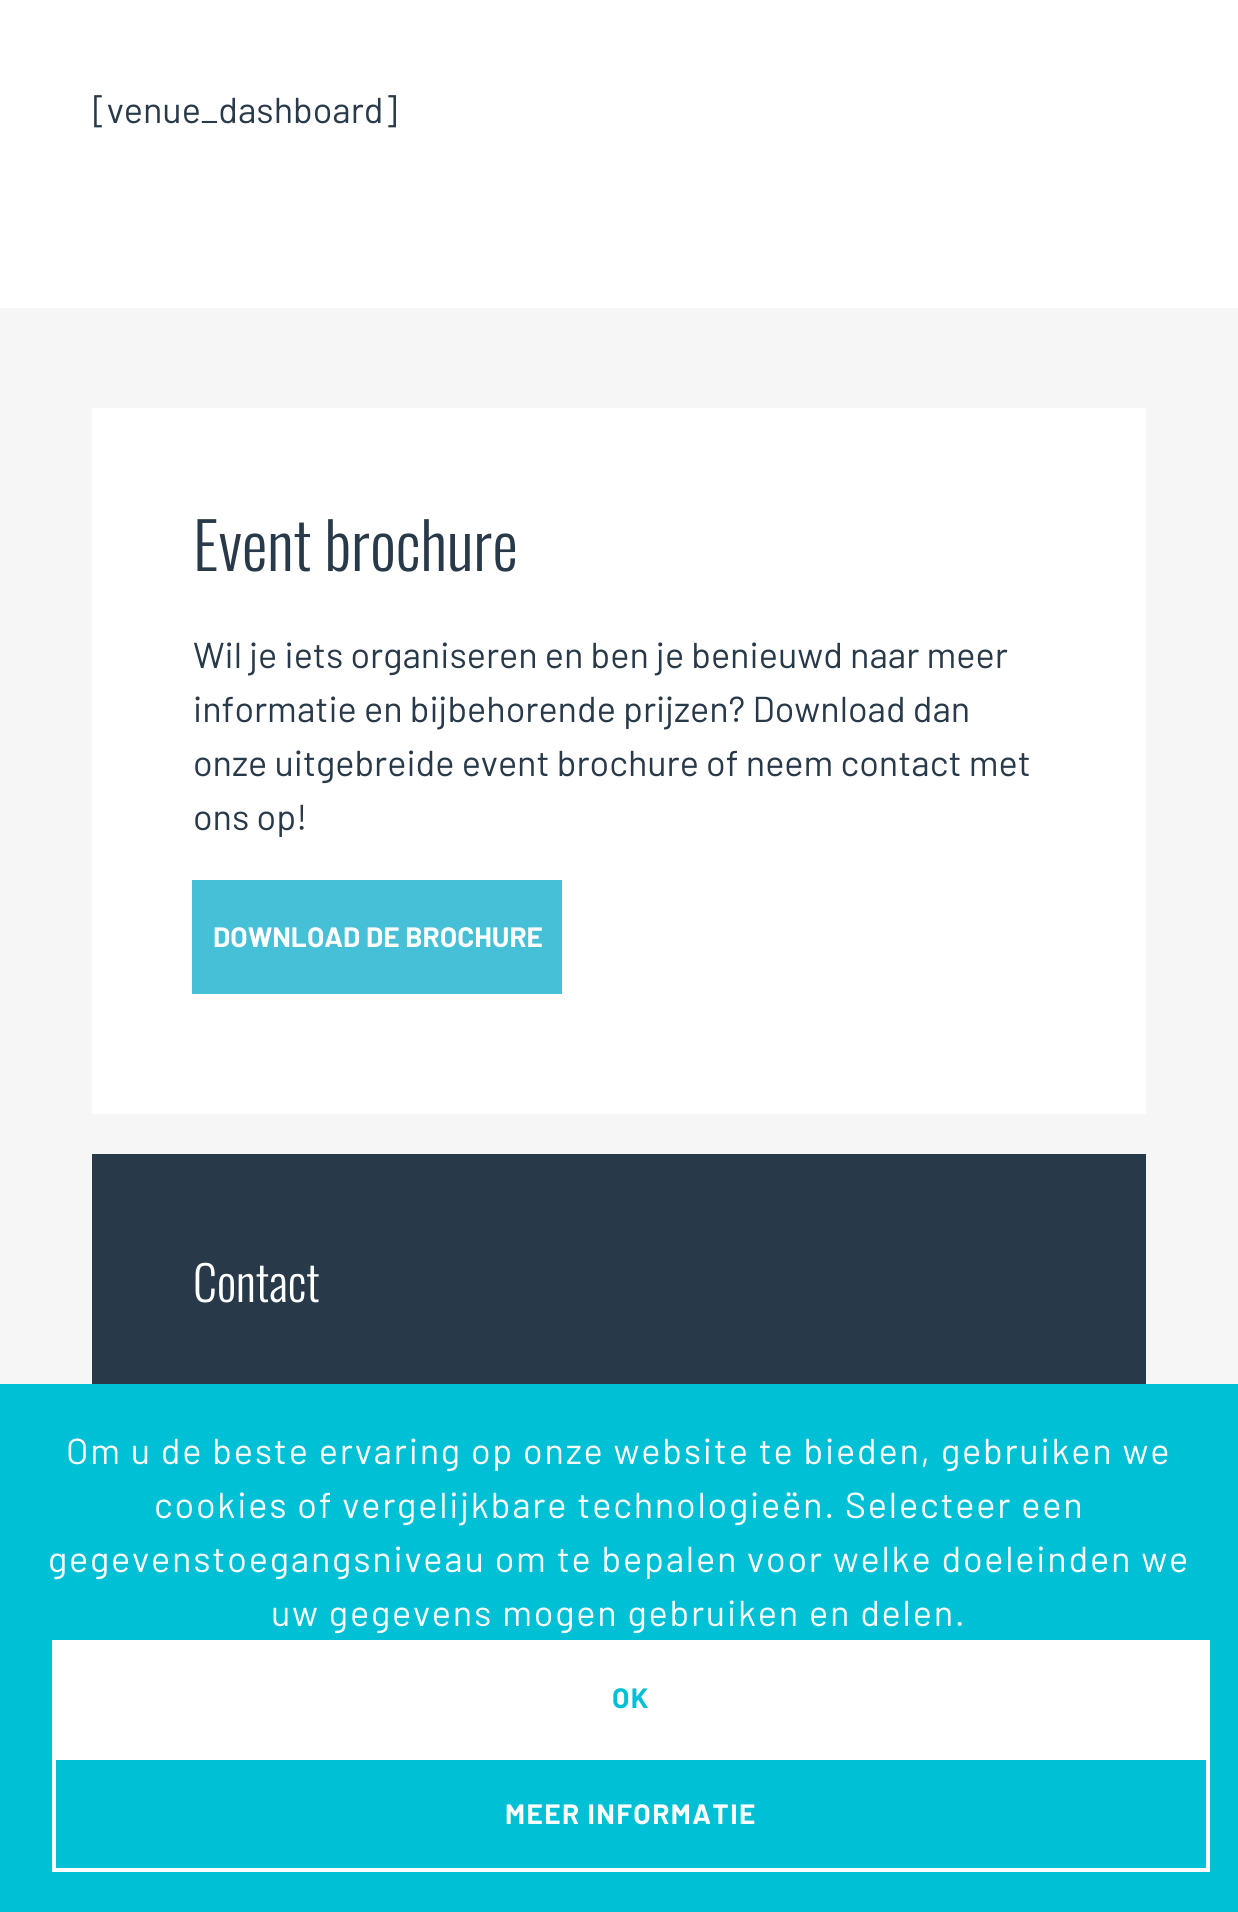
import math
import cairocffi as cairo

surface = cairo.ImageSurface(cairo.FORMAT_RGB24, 1238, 1912)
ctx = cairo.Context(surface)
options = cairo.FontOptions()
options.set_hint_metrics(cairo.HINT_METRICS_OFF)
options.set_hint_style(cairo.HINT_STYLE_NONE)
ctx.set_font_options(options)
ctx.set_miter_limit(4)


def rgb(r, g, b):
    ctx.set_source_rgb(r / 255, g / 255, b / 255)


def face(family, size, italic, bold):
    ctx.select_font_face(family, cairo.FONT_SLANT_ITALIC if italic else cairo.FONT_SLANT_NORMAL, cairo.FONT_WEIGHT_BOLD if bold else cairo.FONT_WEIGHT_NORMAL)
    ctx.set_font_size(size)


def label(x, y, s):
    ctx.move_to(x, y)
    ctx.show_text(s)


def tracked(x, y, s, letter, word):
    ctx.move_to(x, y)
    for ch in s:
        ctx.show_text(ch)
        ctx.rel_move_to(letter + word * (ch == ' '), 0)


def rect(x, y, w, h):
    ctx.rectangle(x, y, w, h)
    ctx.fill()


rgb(246, 246, 246)
ctx.paint()
rgb(255, 255, 255)
rect(0, 0, 1238, 308)
face('Barlow', 36, 0, 0)
rgb(40, 57, 73)
label(93, 123, '[venue_dashboard]')
rgb(255, 255, 255)
rect(92, 408, 1054, 706)
face('Oswald Light', 64, 0, 0)
rgb(40, 57, 73)
label(193, 571, 'Event brochure')
face('Barlow', 36, 0, 0)
label(193, 668, 'Wil je iets organiseren en ben je benieuwd naar meer')
label(193, 722, 'informatie en bijbehorende prijzen? Download dan')
label(193, 776, 'onze uitgebreide event brochure of neem contact met')
label(193, 830, 'ons op!')
rgb(69, 192, 214)
rect(192, 880, 370, 114)
face('Barlow', 28, 0, 1)
rgb(255, 255, 255)
label(213, 947, 'DOWNLOAD DE BROCHURE')
rgb(40, 57, 73)
rect(92, 1154, 1054, 230)
face('Oswald Light', 48, 0, 0)
rgb(255, 255, 255)
label(193, 1302, 'Contact')
rgb(0, 192, 213)
rect(0, 1384, 1238, 528)
face('Barlow', 36, 0, 0)
rgb(255, 255, 255)
tracked(66, 1464, 'Om u de beste ervaring op onze website te bieden, gebruiken we', 1.8, 0)
tracked(154, 1518, 'cookies of vergelijkbare technologieën. Selecteer een', 1.8, 0)
tracked(48, 1572, 'gegevenstoegangsniveau om te bepalen voor welke doeleinden we', 1.8, 0)
tracked(271, 1626, 'uw gegevens mogen gebruiken en delen.', 1.8, 0)
rect(52, 1640, 1158, 116)
face('Barlow', 28, 0, 1)
rgb(0, 192, 213)
tracked(612, 1708, 'OK', 1.4, 0)
ctx.rectangle(54, 1758, 1154, 112)
rgb(255, 255, 255)
ctx.set_line_width(4)
ctx.stroke()
tracked(505, 1824, 'MEER INFORMATIE', 1.4, 0)
surface.write_to_png('render.png')
